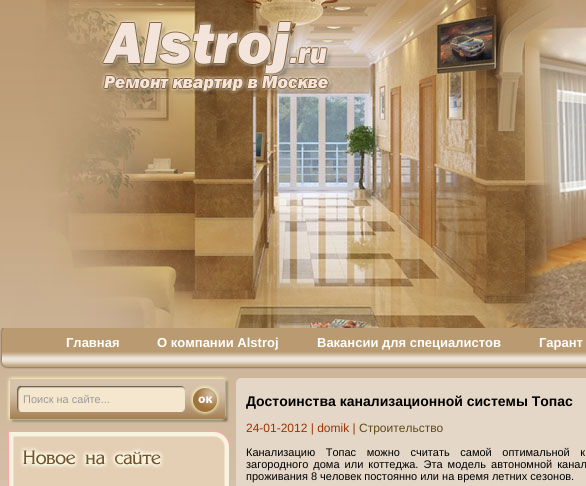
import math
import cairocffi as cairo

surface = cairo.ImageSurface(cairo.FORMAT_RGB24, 586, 486)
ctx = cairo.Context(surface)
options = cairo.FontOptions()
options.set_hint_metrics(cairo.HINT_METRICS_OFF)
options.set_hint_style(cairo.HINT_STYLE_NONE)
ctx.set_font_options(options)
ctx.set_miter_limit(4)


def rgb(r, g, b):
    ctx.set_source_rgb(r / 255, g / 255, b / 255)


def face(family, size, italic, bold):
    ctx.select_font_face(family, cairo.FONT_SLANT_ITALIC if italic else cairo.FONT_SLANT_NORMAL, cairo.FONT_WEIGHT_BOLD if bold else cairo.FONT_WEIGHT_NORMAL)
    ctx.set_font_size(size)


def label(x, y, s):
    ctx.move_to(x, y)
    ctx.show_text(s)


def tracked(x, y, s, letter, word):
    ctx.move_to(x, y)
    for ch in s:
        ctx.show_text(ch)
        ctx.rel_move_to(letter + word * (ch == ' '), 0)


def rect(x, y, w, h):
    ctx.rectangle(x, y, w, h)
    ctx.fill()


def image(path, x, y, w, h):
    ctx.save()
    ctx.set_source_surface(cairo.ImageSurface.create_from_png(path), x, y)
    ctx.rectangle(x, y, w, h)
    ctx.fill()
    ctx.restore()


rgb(214, 194, 170)
ctx.paint()
image('image0.png', 0, 0, 586, 480)
image('image1.png', 1, 0, 585, 328)
image('image2.png', 100, 18, 233, 77)
image('image3.png', 0, 328, 586, 41)
face('Liberation Sans', 13, 0, 1)
rgb(255, 255, 255)
label(66, 347, 'Главная')
label(157, 347, 'О компании Alstroj')
label(317, 347, 'Вакансии для специалистов')
label(539, 347, 'Гарант')
image('image4.png', 6, 375, 223, 48)
face('Liberation Sans', 11, 0, 0)
rgb(153, 153, 153)
label(23, 403, 'Поиск на сайте...')
image('image5.png', 190, 385, 30, 31)
image('image6.png', 8, 431, 222, 42)
image('image7.png', 8, 473, 222, 13)
image('image8.png', 236, 378, 350, 5)
rgb(228, 215, 199)
rect(236, 383, 350, 103)
face('Liberation Sans', 14, 0, 1)
rgb(0, 0, 0)
label(246, 406, 'Достоинства канализационной системы Топас')
face('Liberation Sans', 12, 0, 0)
rgb(153, 51, 0)
label(246, 432, '24-01-2012 | domik |')
rgb(95, 74, 22)
label(359, 432, 'Строительство')
face('Liberation Sans', 11, 0, 0)
rgb(0, 0, 0)
tracked(246, 456, 'Канализацию Топас можно считать самой оптимальной к', 0, 7.5)
tracked(246, 468, 'загородного дома или коттеджа. Эта модель автономной канал', 0, 2)
label(246, 480, 'проживания 8 человек постоянно или на время летних сезонов.')
surface.write_to_png('render.png')
